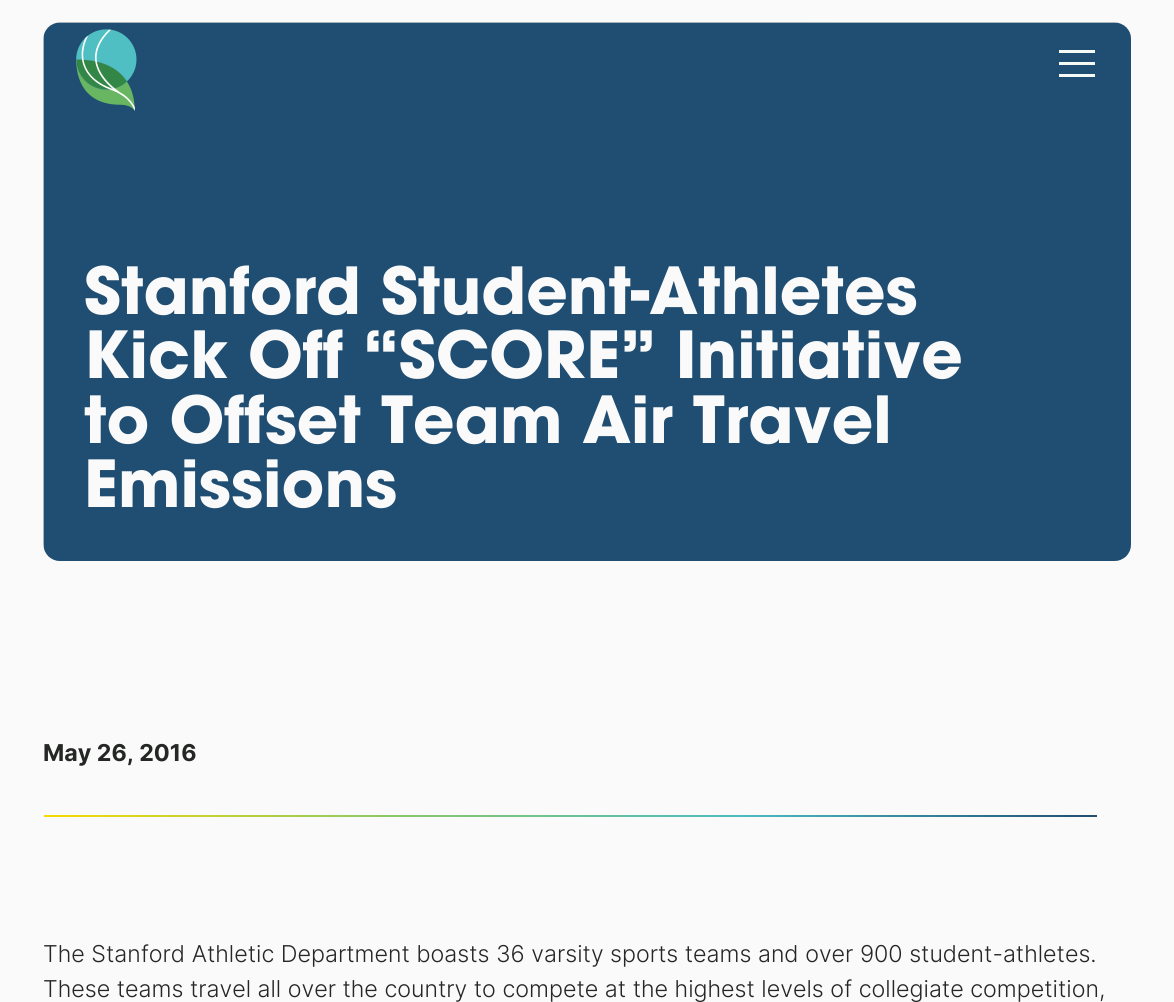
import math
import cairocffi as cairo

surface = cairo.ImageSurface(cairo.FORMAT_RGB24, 1174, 1002)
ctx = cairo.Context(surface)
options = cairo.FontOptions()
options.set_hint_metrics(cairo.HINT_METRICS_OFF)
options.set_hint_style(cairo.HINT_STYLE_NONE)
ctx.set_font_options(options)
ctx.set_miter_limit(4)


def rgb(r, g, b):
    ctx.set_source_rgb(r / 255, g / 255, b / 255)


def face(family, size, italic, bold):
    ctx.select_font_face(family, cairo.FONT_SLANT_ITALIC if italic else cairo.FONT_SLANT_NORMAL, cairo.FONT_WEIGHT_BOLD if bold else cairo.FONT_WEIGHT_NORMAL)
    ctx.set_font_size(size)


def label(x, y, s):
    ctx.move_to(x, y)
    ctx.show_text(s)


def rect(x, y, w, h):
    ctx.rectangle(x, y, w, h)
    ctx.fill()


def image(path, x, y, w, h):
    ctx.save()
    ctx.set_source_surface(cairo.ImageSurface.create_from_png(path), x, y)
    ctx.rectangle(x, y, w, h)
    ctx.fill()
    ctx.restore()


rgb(250, 250, 250)
ctx.paint()
image('image1.png', 43, 22, 1088, 539)
image('image0.png', 76, 29, 61, 82)
rgb(245, 250, 245)
rect(1059, 50, 36, 3)
rect(1059, 62, 36, 3)
rect(1059, 74, 36, 3)
face('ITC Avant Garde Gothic', 64.4, 0, 1)
rgb(250, 250, 250)
label(84, 314, 'Stanford Student-Athletes')
label(84, 378, 'Kick Off “SCORE” Initiative')
label(84, 443, 'to Offset Team Air Travel')
label(84, 507, 'Emissions')
face('Inter', 23.25, 0, 1)
rgb(37, 39, 37)
label(43, 761, 'May 26, 2016')
gradient = cairo.LinearGradient(44, 815, 1097, 815)
gradient.add_color_stop_rgba(0, 0.969, 0.855, 0, 1)
gradient.add_color_stop_rgba(0.33, 0.545, 0.784, 0.408, 1)
gradient.add_color_stop_rgba(0.66, 0.302, 0.737, 0.757, 1)
gradient.add_color_stop_rgba(1, 0.125, 0.306, 0.451, 1)
ctx.set_source(gradient)
rect(44, 815, 1053, 2)
face('Inter Light', 23.25, 0, 0)
rgb(37, 39, 37)
label(43, 962, 'The Stanford Athletic Department boasts 36 varsity sports teams and over 900 student-athletes.')
label(43, 997, 'These teams travel all over the country to compete at the highest levels of collegiate competition,')
surface.write_to_png('render.png')
